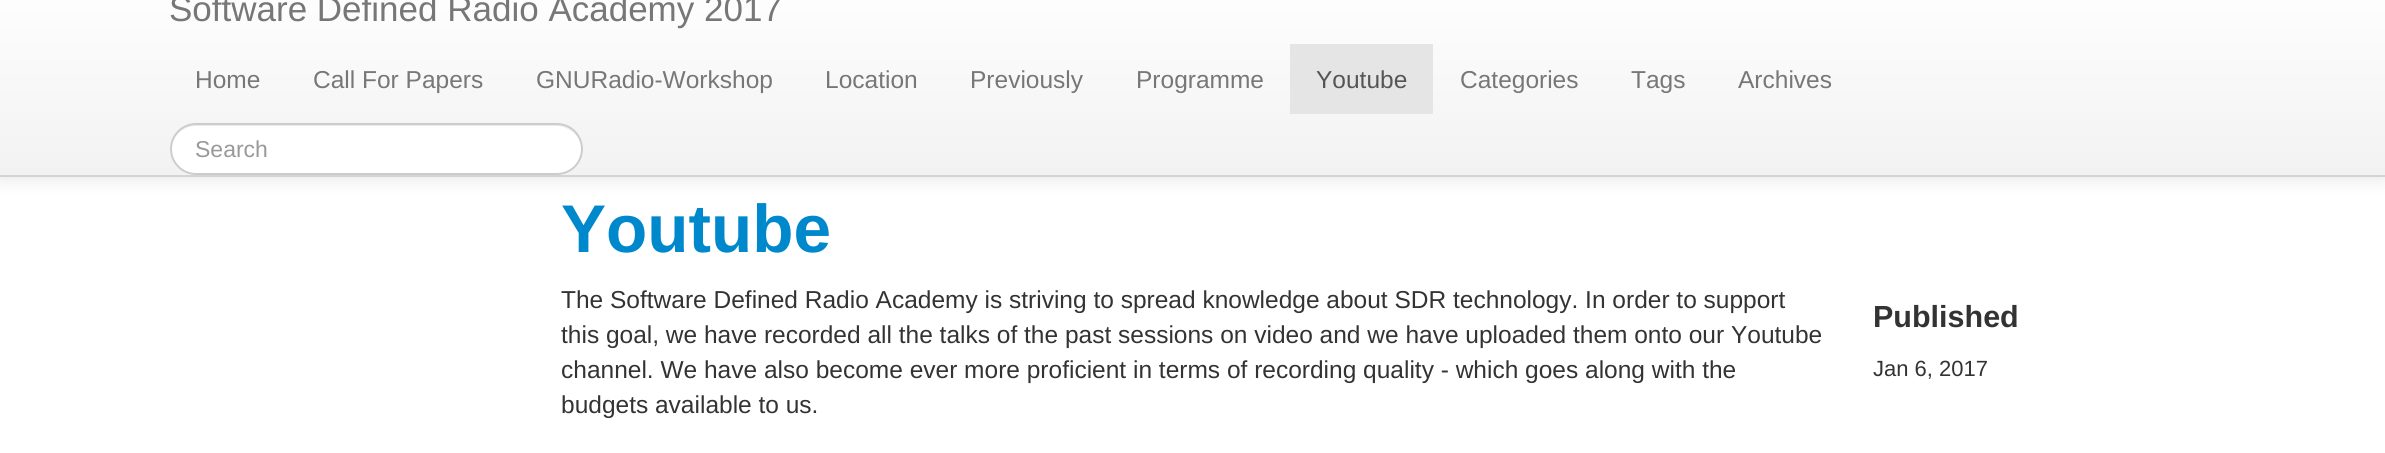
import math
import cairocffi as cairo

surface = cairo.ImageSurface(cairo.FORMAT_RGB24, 2385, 453)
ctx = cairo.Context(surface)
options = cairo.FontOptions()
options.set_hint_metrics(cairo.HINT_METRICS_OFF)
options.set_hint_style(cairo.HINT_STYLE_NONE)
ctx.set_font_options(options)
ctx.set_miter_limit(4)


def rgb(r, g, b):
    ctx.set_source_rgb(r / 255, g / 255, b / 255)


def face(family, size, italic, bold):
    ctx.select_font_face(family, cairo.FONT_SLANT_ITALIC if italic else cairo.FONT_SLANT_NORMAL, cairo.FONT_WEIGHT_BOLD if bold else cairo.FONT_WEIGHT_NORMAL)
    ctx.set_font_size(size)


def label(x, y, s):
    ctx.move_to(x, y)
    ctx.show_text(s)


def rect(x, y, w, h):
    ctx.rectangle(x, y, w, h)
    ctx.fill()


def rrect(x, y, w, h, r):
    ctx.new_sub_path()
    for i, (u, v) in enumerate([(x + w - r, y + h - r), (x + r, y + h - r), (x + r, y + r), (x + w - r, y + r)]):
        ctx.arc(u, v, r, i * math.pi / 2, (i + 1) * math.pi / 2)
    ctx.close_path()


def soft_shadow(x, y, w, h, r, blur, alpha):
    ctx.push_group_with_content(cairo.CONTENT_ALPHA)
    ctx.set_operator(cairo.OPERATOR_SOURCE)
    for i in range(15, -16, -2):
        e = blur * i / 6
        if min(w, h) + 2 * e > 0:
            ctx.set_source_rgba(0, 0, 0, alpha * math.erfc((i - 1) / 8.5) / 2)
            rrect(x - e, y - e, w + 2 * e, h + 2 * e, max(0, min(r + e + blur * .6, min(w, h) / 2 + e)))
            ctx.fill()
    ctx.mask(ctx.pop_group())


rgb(255, 255, 255)
ctx.paint()
rgb(0, 0, 0)
soft_shadow(0, -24, 2385, 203, 0, 9, 0.1)
gradient = cairo.LinearGradient(1193, -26, 1193, 175)
gradient.add_color_stop_rgba(0, 1, 1, 1, 1)
gradient.add_color_stop_rgba(1, 0.949, 0.949, 0.949, 1)
ctx.set_source(gradient)
rect(0, 0, 2385, 175)
rgb(212, 212, 212)
rect(0, 175, 2385, 2)
face('Liberation Sans', 35, 0, 0)
rgb(119, 119, 119)
label(169, 21, 'Software Defined Radio Academy 2017')
face('Liberation Sans', 24.5, 0, 0)
label(195, 88, 'Home')
label(313, 88, 'Call For Papers')
label(536, 88, 'GNURadio-Workshop')
label(825, 88, 'Location')
label(970, 88, 'Previously')
label(1136, 88, 'Programme')
rgb(229, 229, 229)
rect(1290, 44, 143, 70)
rgb(85, 85, 85)
label(1316, 88, 'Youtube')
rgb(119, 119, 119)
label(1460, 88, 'Categories')
label(1631, 88, 'Tags')
label(1738, 88, 'Archives')
rgb(255, 255, 255)
rrect(170, 123, 413, 52, 26)
ctx.fill()
rgb(236, 236, 236)
ctx.new_path()
ctx.move_to(196, 126)
ctx.line_to(556, 126)
ctx.curve_to(570, 126, 581, 137, 581, 149)
ctx.curve_to(581, 136, 570, 124, 556, 124)
ctx.line_to(196, 124)
ctx.curve_to(183, 124, 172, 136, 172, 149)
ctx.curve_to(172, 137, 182, 126, 196, 126)
ctx.close_path()
ctx.fill()
rrect(171, 124, 411, 50, 25)
rgb(204, 204, 204)
ctx.stroke()
face('Liberation Sans', 23, 0, 0)
rgb(153, 153, 153)
label(195, 157, 'Search')
face('Liberation Sans', 67.5, 0, 1)
rgb(0, 136, 204)
label(561, 252, 'Youtube')
face('Liberation Sans', 24.5, 0, 0)
rgb(51, 51, 51)
label(561, 308, 'The Software Defined Radio Academy is striving to spread knowledge about SDR technology. In order to support')
label(561, 343, 'this goal, we have recorded all the talks of the past sessions on video and we have uploaded them onto our Youtube')
label(561, 378, 'channel. We have also become ever more proficient in terms of recording quality - which goes along with the')
label(561, 413, 'budgets available to us.')
face('Liberation Sans', 30.5, 0, 1)
label(1873, 327, 'Published')
face('Liberation Sans', 22, 0, 0)
label(1873, 376, 'Jan 6, 2017')
surface.write_to_png('render.png')
